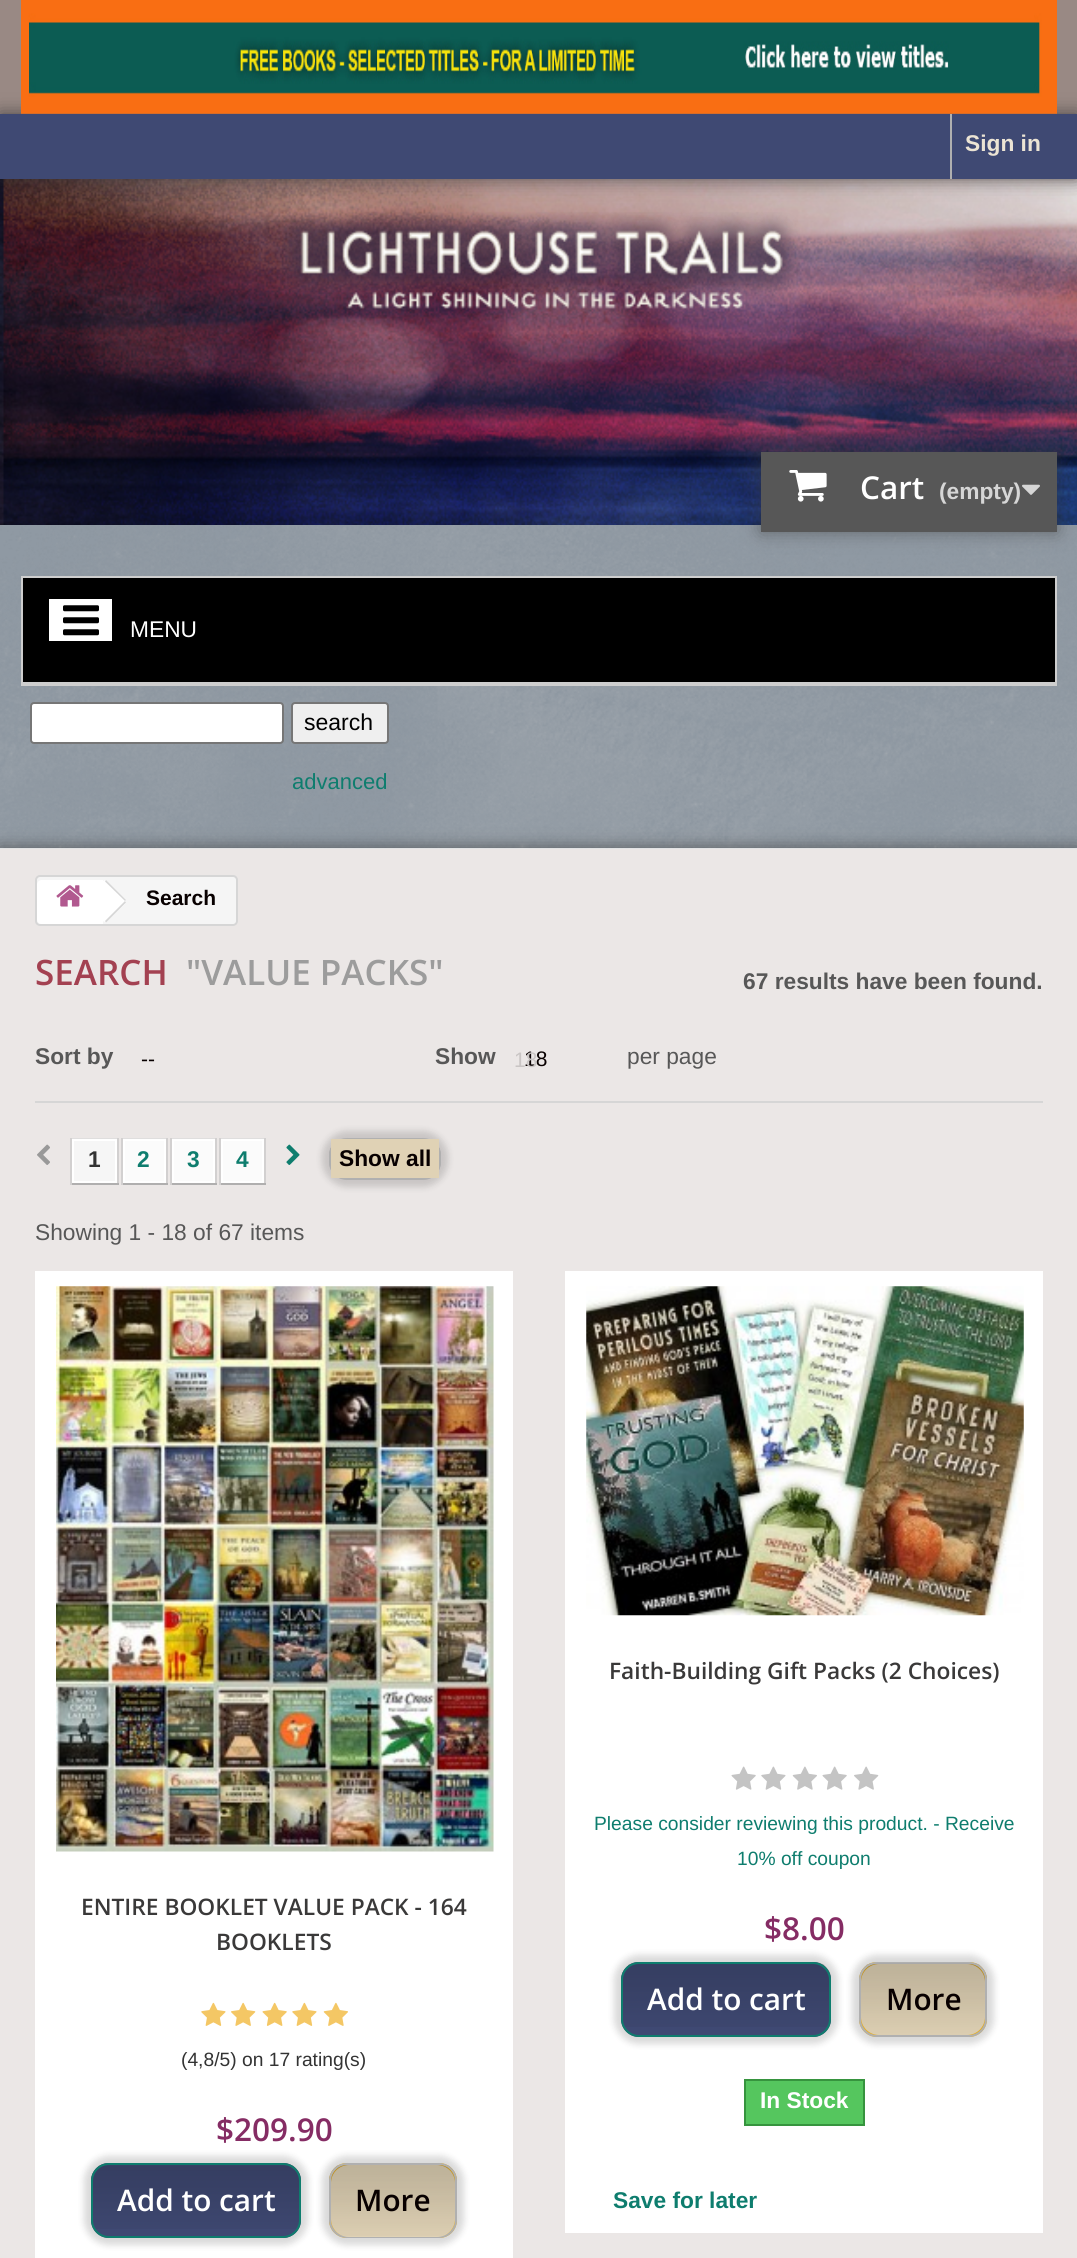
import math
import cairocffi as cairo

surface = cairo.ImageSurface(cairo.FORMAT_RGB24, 1077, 2258)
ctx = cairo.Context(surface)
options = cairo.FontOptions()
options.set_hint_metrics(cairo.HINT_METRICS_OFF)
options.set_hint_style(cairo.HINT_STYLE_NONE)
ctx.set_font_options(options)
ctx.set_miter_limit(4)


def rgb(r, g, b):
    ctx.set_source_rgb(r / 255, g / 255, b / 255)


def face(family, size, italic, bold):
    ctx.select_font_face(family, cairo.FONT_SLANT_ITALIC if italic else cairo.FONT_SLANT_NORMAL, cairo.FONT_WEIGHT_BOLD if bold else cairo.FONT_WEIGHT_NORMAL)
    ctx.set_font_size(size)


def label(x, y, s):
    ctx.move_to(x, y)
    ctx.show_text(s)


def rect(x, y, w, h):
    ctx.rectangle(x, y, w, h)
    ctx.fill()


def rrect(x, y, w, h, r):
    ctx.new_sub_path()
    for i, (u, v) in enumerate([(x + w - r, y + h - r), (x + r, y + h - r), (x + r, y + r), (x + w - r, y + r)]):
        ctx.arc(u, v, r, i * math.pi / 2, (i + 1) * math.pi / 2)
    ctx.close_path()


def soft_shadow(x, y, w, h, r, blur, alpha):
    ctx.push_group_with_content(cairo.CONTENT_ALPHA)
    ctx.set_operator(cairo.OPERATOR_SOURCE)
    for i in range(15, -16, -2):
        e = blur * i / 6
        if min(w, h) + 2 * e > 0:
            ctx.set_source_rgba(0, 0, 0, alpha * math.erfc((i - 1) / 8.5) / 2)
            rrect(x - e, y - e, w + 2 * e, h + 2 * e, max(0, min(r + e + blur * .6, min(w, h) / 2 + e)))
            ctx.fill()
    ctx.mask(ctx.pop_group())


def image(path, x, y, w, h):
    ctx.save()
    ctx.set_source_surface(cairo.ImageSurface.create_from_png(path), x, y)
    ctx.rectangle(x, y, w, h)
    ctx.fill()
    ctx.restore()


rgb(143, 153, 163)
ctx.paint()
image('image0.png', 0, 525, 1077, 324)
image('image1.png', 0, 179, 1077, 346)
rgb(153, 137, 132)
rect(0, 0, 1077, 114)
rgb(50, 50, 50)
soft_shadow(0, 114, 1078, 65, 0, 9, 0.75)
image('image2.png', 21, 0, 1036, 114)
rgb(63, 73, 115)
rect(0, 114, 1077, 65)
rgb(176, 176, 176)
rect(950, 114, 2, 65)
face('Liberation Sans', 22.75, 0, 1)
rgb(236, 228, 212)
label(965, 151, 'Sign in')
image('image3.png', 282, 212, 518, 97)
rgb(50, 50, 50)
soft_shadow(761, 452, 296, 80, 0, 9, 0.5)
rgb(87, 87, 87)
rect(761, 452, 296, 80)
image('image4.png', 789, 470, 38, 32)
face('Open Sans SemiBold', 31.5, 0, 0)
rgb(255, 255, 255)
label(860, 499, 'Cart')
face('Liberation Sans', 22.75, 0, 1)
rgb(214, 214, 214)
label(939, 499, '(empty)')
image('image5.png', 1022, 484, 18, 11)
rgb(0, 0, 0)
ctx.rectangle(22, 577, 1034, 106)
ctx.fill_preserve()
rgb(206, 206, 206)
ctx.stroke()
rgb(255, 255, 255)
rect(49, 599, 63, 42)
image('image6.png', 63, 605, 36, 31)
face('Liberation Sans', 22.75, 0, 0)
label(130, 637, 'MENU')
rgb(206, 206, 206)
rect(21, 684, 1036, 2)
rgb(255, 255, 255)
rrect(31, 703, 252, 40, 3)
ctx.fill_preserve()
rgb(118, 118, 118)
ctx.stroke()
rgb(239, 239, 239)
rrect(292, 703, 96, 40, 3)
ctx.fill_preserve()
rgb(118, 118, 118)
ctx.stroke()
face('Liberation Sans', 23, 0, 0)
rgb(0, 0, 0)
label(304, 730, 'search')
face('Liberation Sans', 22, 0, 0)
rgb(14, 125, 110)
label(292, 789, 'advanced')
rgb(50, 50, 50)
soft_shadow(0, 849, 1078, 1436, 0, 9, 0.75)
rgb(153, 137, 132)
rect(0, 849, 1077, 1409)
ctx.set_source_rgba(1, 1, 1, 0.8)
rect(0, 848, 1077, 1410)
rgb(245, 245, 245)
rrect(36, 876, 201, 49, 4)
ctx.fill_preserve()
rgb(214, 214, 214)
ctx.stroke()
rgb(255, 255, 255)
ctx.new_path()
ctx.move_to(42, 880)
ctx.line_to(103, 880)
ctx.line_to(103, 924)
ctx.line_to(42, 924)
ctx.curve_to(39, 924, 37, 922, 37, 919)
ctx.line_to(37, 885)
ctx.curve_to(37, 882, 39, 880, 42, 880)
ctx.close_path()
ctx.fill()
image('image7.png', 56, 885, 28, 22)
ctx.new_path()
ctx.move_to(107, 881)
ctx.line_to(125, 899)
ctx.curve_to(126, 900, 126, 902, 125, 904)
ctx.line_to(107, 921)
ctx.curve_to(106, 922, 104, 922, 103, 921)
ctx.line_to(85, 904)
ctx.curve_to(84, 902, 84, 900, 85, 899)
ctx.line_to(103, 881)
ctx.curve_to(104, 880, 106, 880, 107, 881)
ctx.close_path()
ctx.fill()
rgb(214, 214, 214)
ctx.new_path()
ctx.move_to(106, 880)
ctx.line_to(126, 900)
ctx.line_to(125, 901)
ctx.line_to(105, 881.5)
ctx.close_path()
ctx.move_to(125, 901)
ctx.line_to(126, 902.5)
ctx.line_to(106, 922.5)
ctx.line_to(105, 921)
ctx.close_path()
ctx.fill()
face('Liberation Sans', 21, 0, 1)
rgb(8, 0, 0)
label(146, 905, 'Search')
face('Open Sans SemiBold', 35, 0, 0)
rgb(163, 65, 81)
label(35, 985, 'SEARCH')
rgb(156, 156, 156)
label(186, 985, '"VALUE PACKS"')
face('Liberation Sans', 22.75, 0, 1)
rgb(87, 87, 87)
label(743, 989, '67 results have been found.')
rgb(214, 214, 214)
rect(35, 1101, 1008, 2)
rgb(87, 87, 87)
label(35, 1064, 'Sort by')
face('Liberation Sans', 21, 0, 0)
rgb(8, 0, 0)
label(141, 1066, '--')
face('Liberation Sans', 22.75, 0, 1)
rgb(87, 87, 87)
label(435, 1064, 'Show')
face('Liberation Sans', 21, 0, 0)
rgb(8, 0, 0)
label(524, 1066, '18')
rgb(201, 197, 196)
label(514, 1067, '18')
face('Liberation Sans', 22.75, 0, 0)
rgb(87, 87, 87)
label(627, 1064, 'per page')
image('image8.png', 37, 1144, 13, 21)
rgb(223, 222, 222)
rect(70, 1138, 49, 1)
rgb(210, 208, 208)
rect(117, 1138, 2, 47)
rgb(176, 175, 175)
rect(70, 1183, 49, 2)
rgb(210, 208, 208)
rect(70, 1138, 2, 47)
rgb(246, 246, 246)
ctx.rectangle(73, 1140, 43, 42)
ctx.fill_preserve()
rgb(255, 255, 255)
ctx.stroke()
face('Liberation Sans', 22.75, 0, 1)
rgb(51, 51, 51)
label(88, 1167, '1')
rgb(223, 222, 222)
rect(121, 1138, 47, 1)
rgb(210, 208, 208)
rect(166, 1138, 2, 47)
rgb(176, 175, 175)
rect(121, 1183, 47, 2)
rgb(210, 208, 208)
rect(121, 1138, 2, 47)
rgb(251, 251, 251)
ctx.rectangle(124, 1140, 41, 42)
ctx.fill_preserve()
rgb(255, 255, 255)
ctx.stroke()
rgb(14, 125, 110)
label(137, 1167, '2')
rgb(223, 222, 222)
rect(170, 1138, 47, 1)
rgb(210, 208, 208)
rect(215, 1138, 2, 47)
rgb(176, 175, 175)
rect(170, 1183, 47, 2)
rgb(210, 208, 208)
rect(170, 1138, 2, 47)
rgb(251, 251, 251)
ctx.rectangle(173, 1140, 41, 42)
ctx.fill_preserve()
rgb(255, 255, 255)
ctx.stroke()
rgb(14, 125, 110)
label(187, 1167, '3')
rgb(223, 222, 222)
rect(219, 1138, 47, 1)
rgb(210, 208, 208)
rect(264, 1138, 2, 47)
rgb(176, 175, 175)
rect(219, 1183, 47, 2)
rgb(210, 208, 208)
rect(219, 1138, 2, 47)
rgb(251, 251, 251)
ctx.rectangle(222, 1140, 41, 42)
ctx.fill_preserve()
rgb(255, 255, 255)
ctx.stroke()
rgb(14, 125, 110)
label(236, 1167, '4')
image('image9.png', 286, 1144, 14, 21)
rgb(0, 0, 0)
soft_shadow(322, 1131, 126, 56, 25, 3.5, 0.15)
image('image10.png', 329, 1147, 112, 32)
rrect(330, 1139, 110, 40, 17)
rgb(176, 176, 176)
ctx.stroke()
rgb(224, 210, 181)
rect(331, 1139, 108, 39)
rgb(8, 0, 0)
label(339, 1166, 'Show all')
face('Liberation Sans', 22.75, 0, 0)
rgb(87, 87, 87)
label(35, 1240, 'Showing 1 - 18 of 67 items')
rgb(255, 255, 255)
rect(35, 1271, 478, 987)
image('image11.png', 56, 1286, 438, 566)
face('Open Sans SemiBold', 22.75, 0, 0)
rgb(58, 57, 57)
label(81, 1915, 'ENTIRE BOOKLET VALUE PACK - 164')
label(216, 1950, 'BOOKLETS')
image('image12.png', 201, 2002, 25, 24)
image('image13.png', 231, 2002, 25, 24)
image('image14.png', 262, 2002, 25, 24)
image('image12.png', 292, 2002, 25, 24)
image('image15.png', 323, 2002, 25, 24)
face('Liberation Sans', 19.25, 0, 0)
rgb(51, 51, 51)
label(181, 2066, '(4,8/5) on 17 rating(s)')
face('Open Sans SemiBold', 31.5, 0, 0)
rgb(133, 44, 100)
label(216, 2141, '$209.90')
rgb(0, 0, 0)
soft_shadow(84, 2156, 224, 89, 25, 3.5, 0.15)
image('image16.png', 91, 2163, 210, 71)
rgb(63, 73, 115)
rrect(91, 2163, 210, 75, 18)
ctx.fill()
image('image17.png', 91, 2164, 210, 65)
rrect(92, 2164, 208, 73, 17)
rgb(14, 125, 110)
ctx.stroke()
face('Open Sans SemiBold', 29.75, 0, 0)
rgb(255, 255, 255)
label(117, 2211, 'Add to cart')
rgb(0, 0, 0)
soft_shadow(322, 2156, 142, 89, 25, 3.5, 0.15)
rgb(244, 182, 27)
rrect(329, 2163, 128, 75, 18)
ctx.fill()
image('image18.png', 329, 2164, 128, 73)
rrect(330, 2164, 126, 73, 17)
rgb(176, 176, 176)
ctx.stroke()
rgb(224, 210, 181)
rrect(331, 2165, 124, 72, 18)
ctx.fill()
image('image19.png', 331, 2165, 124, 71)
rgb(8, 0, 0)
label(355, 2211, 'More')
rgb(255, 255, 255)
rect(565, 1271, 478, 962)
image('image20.png', 586, 1286, 438, 330)
face('Open Sans SemiBold', 22.75, 0, 0)
rgb(58, 57, 57)
label(609, 1679, 'Faith-Building Gift Packs (2 Choices)')
image('image21.png', 731, 1766, 25, 24)
image('image22.png', 761, 1766, 25, 24)
image('image23.png', 792, 1766, 25, 24)
image('image21.png', 822, 1766, 25, 24)
image('image24.png', 854, 1766, 25, 24)
face('Liberation Sans', 19.25, 0, 0)
rgb(14, 125, 110)
label(594, 1830, 'Please consider reviewing this product. - Receive')
label(737, 1865, '10% off coupon')
face('Open Sans SemiBold', 31.5, 0, 0)
rgb(133, 44, 100)
label(764, 1940, '$8.00')
rgb(0, 0, 0)
soft_shadow(614, 1955, 224, 89, 25, 3.5, 0.15)
image('image25.png', 621, 1962, 210, 71)
rgb(63, 73, 115)
rrect(621, 1962, 210, 75, 18)
ctx.fill()
image('image26.png', 621, 1963, 210, 64)
rrect(622, 1963, 208, 73, 17)
rgb(14, 125, 110)
ctx.stroke()
face('Open Sans SemiBold', 29.75, 0, 0)
rgb(255, 255, 255)
label(647, 2010, 'Add to cart')
rgb(0, 0, 0)
soft_shadow(852, 1955, 142, 89, 25, 3.5, 0.15)
rgb(244, 182, 27)
rrect(859, 1962, 128, 75, 18)
ctx.fill()
image('image27.png', 859, 1963, 128, 72)
rrect(860, 1963, 126, 73, 17)
rgb(176, 176, 176)
ctx.stroke()
rgb(224, 210, 181)
rrect(861, 1964, 124, 71, 18)
ctx.fill()
image('image28.png', 861, 1963, 124, 72)
rgb(8, 0, 0)
label(886, 2010, 'More')
rgb(85, 198, 94)
ctx.rectangle(745, 2080, 119, 45)
ctx.fill_preserve()
rgb(54, 148, 62)
ctx.stroke()
face('Liberation Sans', 22.75, 0, 1)
rgb(255, 255, 255)
label(760, 2108, 'In Stock')
rgb(14, 125, 110)
label(613, 2208, 'Save for later')
surface.write_to_png('render.png')
